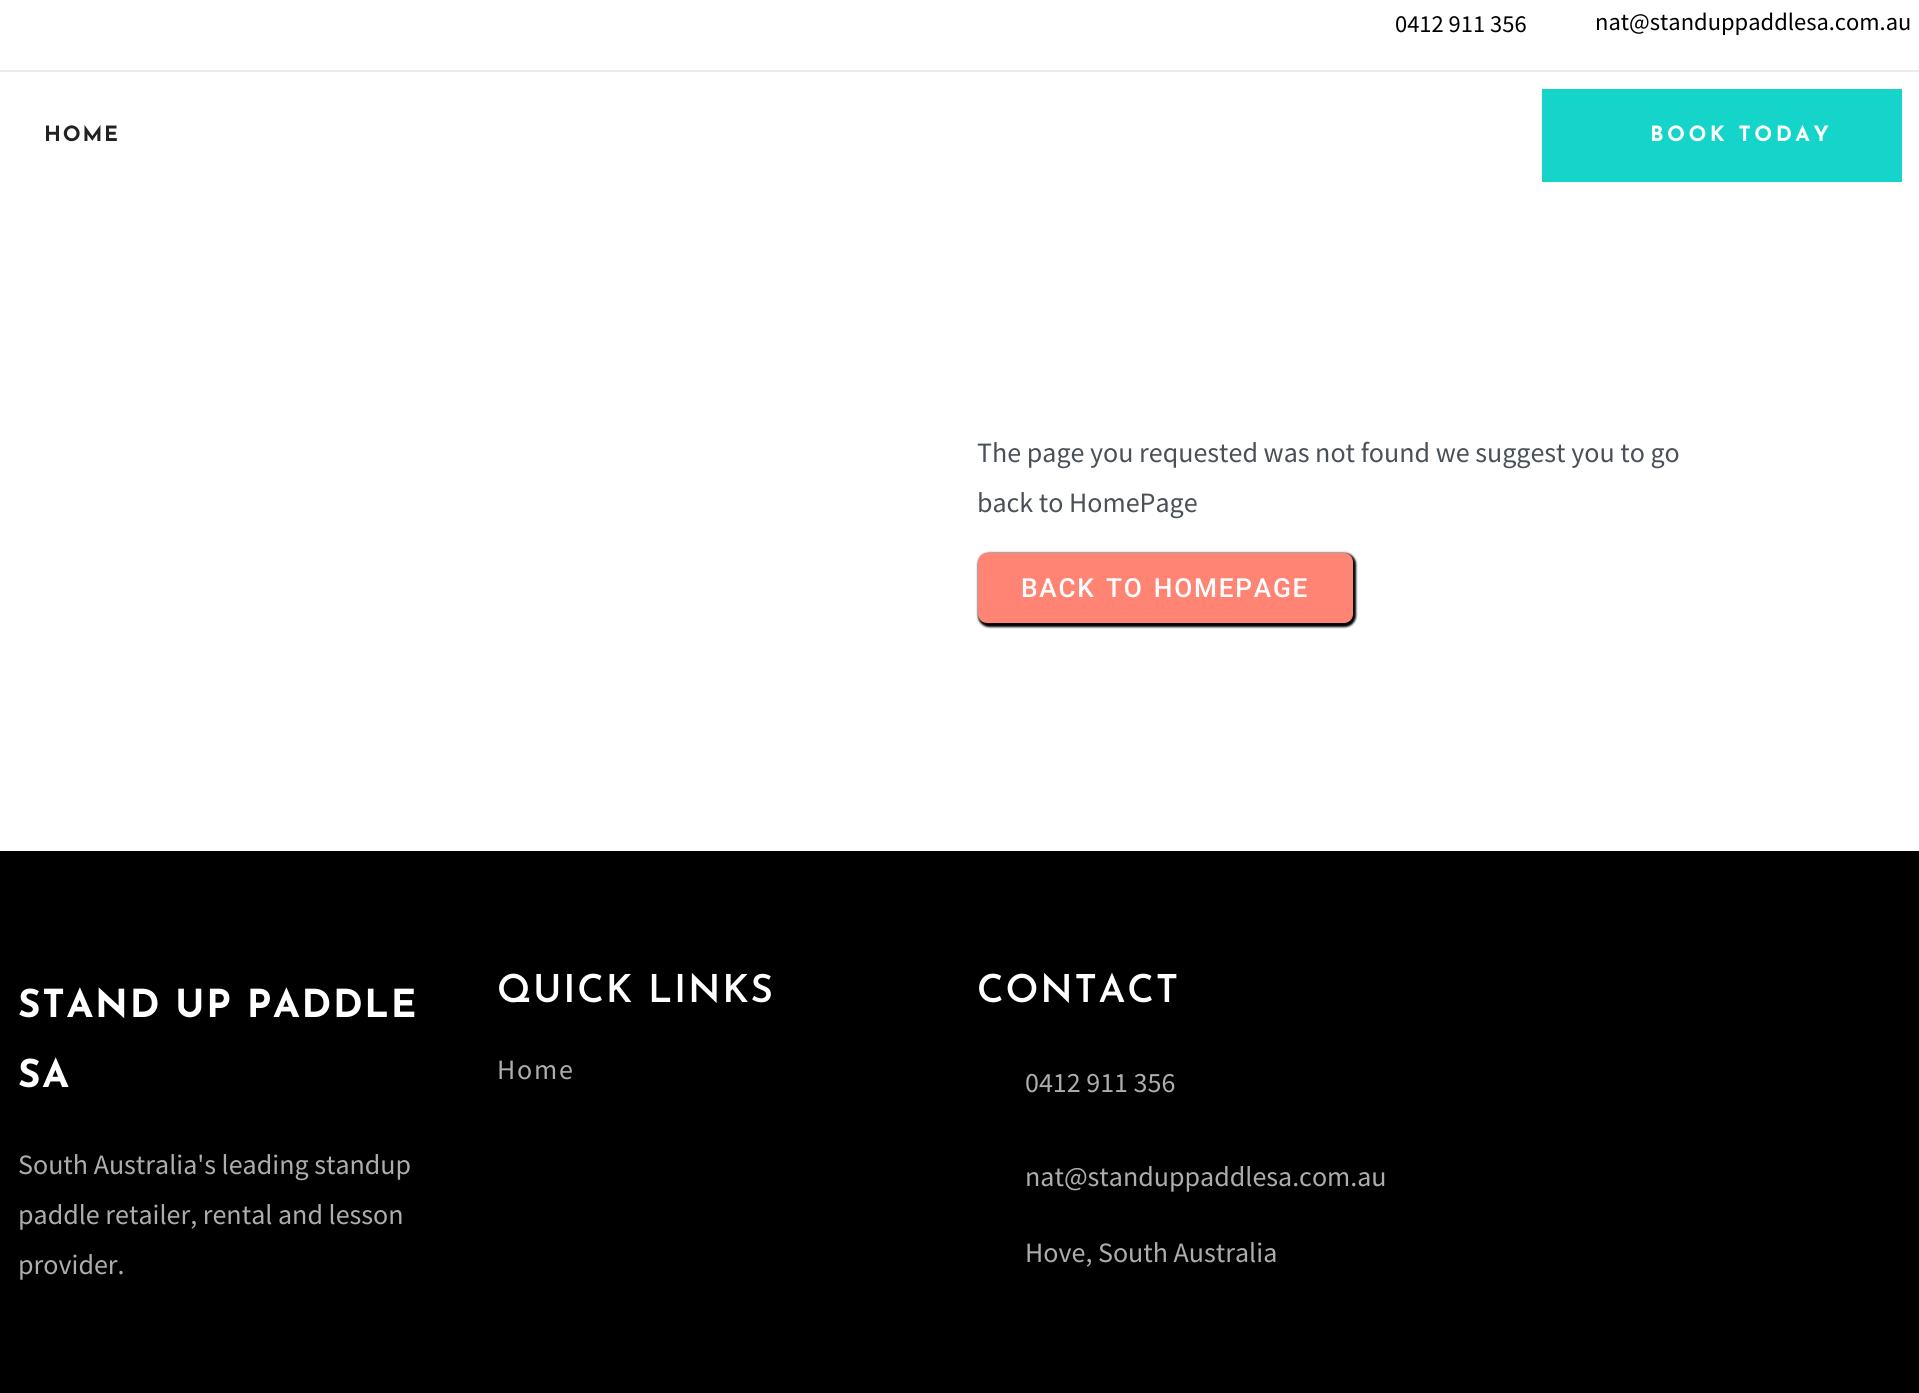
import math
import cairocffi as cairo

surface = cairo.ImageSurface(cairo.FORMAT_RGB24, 1919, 1393)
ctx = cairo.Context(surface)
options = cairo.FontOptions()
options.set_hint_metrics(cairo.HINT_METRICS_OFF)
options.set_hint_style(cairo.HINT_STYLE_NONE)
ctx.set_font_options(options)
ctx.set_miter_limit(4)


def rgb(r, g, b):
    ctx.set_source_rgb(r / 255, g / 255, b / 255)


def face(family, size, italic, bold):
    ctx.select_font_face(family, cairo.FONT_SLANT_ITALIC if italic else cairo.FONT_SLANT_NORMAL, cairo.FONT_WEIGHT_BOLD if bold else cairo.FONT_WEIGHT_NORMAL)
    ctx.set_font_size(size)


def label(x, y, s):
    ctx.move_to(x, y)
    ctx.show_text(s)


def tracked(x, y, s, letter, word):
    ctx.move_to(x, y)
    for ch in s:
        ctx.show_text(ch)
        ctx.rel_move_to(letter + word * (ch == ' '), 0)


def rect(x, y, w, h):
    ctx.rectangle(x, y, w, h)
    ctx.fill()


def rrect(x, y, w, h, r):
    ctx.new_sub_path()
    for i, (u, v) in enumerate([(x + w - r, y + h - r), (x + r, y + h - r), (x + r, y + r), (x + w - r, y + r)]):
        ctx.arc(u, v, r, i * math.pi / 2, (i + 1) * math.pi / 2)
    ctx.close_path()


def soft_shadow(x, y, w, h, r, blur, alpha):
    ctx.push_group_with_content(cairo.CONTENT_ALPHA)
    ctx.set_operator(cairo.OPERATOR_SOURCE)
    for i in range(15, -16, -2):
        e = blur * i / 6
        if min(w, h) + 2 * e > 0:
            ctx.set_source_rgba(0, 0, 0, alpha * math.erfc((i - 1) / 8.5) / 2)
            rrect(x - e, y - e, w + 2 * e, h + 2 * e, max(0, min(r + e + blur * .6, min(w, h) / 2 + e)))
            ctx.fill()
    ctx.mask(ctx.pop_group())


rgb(255, 255, 255)
ctx.paint()
rgb(235, 235, 235)
rect(0, 70, 1919, 2)
face('Source Sans Pro', 24.5, 0, 0)
rgb(0, 0, 0)
label(1395, 32, '0412 911 356')
label(1595, 30, 'nat@standuppaddlesa.com.au')
face('Josefin Sans', 21, 0, 1)
rgb(34, 34, 34)
tracked(44, 141, 'HOME', 1.75, 0)
rgb(21, 213, 202)
rect(1542, 89, 360, 93)
rgb(255, 255, 255)
tracked(1650, 141, 'BOOK TODAY', 3.5, 0)
face('Source Sans Pro', 28, 0, 0)
rgb(73, 80, 87)
label(977, 462, 'The page you requested was not found we suggest you to go')
label(977, 512, 'back to HomePage')
rgb(0, 0, 0)
soft_shadow(978, 553, 378, 74, 11, 1, 1)
rgb(255, 132, 116)
rrect(978, 553, 375, 70, 9)
ctx.fill()
face('Roboto Medium', 26.25, 0, 0)
rgb(255, 255, 255)
tracked(1021, 597, 'BACK TO HOMEPAGE', 1.75, 2)
rgb(0, 0, 0)
rect(0, 851, 1919, 542)
face('Josefin Sans', 38.5, 0, 1)
rgb(255, 255, 255)
tracked(18, 1017, 'STAND UP PADDLE', 1.75, 0)
tracked(18, 1087, 'SA', 1.75, 0)
face('Source Sans Pro', 28, 0, 0)
rgb(173, 173, 173)
label(18, 1174, 'South Australia\'s leading standup')
label(18, 1224, 'paddle retailer, rental and lesson')
label(18, 1274, 'provider.')
face('Josefin Sans SemiBold', 38.5, 0, 0)
rgb(255, 255, 255)
tracked(497, 1002, 'QUICK LINKS', 1.75, 0)
face('Source Sans Pro', 28, 0, 0)
rgb(173, 173, 173)
tracked(497, 1079, 'Home', 1.75, 0)
face('Josefin Sans SemiBold', 38.5, 0, 0)
rgb(255, 255, 255)
tracked(977, 1002, 'CONTACT', 1.75, 0)
face('Source Sans Pro', 28, 0, 0)
rgb(173, 173, 173)
label(1025, 1092, '0412 911 356')
label(1025, 1186, 'nat@standuppaddlesa.com.au')
label(1025, 1262, 'Hove, South Australia')
surface.write_to_png('render.png')
